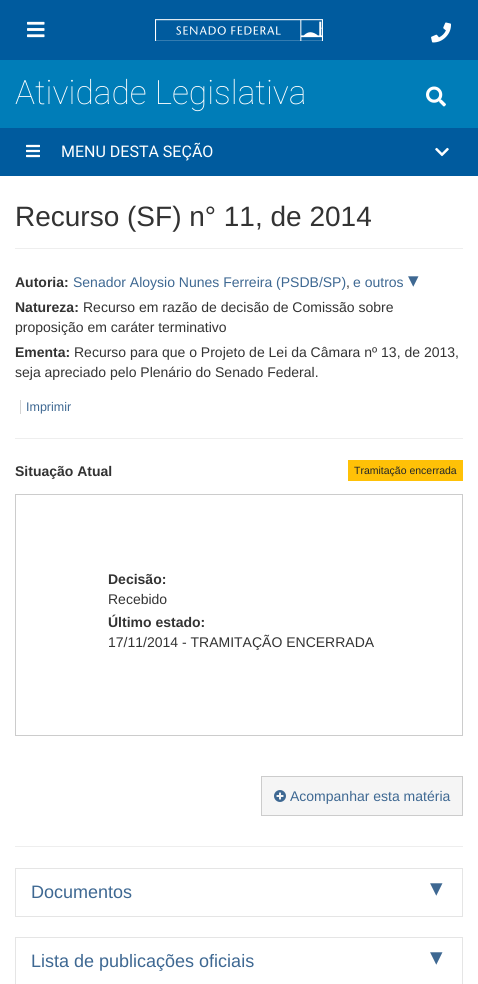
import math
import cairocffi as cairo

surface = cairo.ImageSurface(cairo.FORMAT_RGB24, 478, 984)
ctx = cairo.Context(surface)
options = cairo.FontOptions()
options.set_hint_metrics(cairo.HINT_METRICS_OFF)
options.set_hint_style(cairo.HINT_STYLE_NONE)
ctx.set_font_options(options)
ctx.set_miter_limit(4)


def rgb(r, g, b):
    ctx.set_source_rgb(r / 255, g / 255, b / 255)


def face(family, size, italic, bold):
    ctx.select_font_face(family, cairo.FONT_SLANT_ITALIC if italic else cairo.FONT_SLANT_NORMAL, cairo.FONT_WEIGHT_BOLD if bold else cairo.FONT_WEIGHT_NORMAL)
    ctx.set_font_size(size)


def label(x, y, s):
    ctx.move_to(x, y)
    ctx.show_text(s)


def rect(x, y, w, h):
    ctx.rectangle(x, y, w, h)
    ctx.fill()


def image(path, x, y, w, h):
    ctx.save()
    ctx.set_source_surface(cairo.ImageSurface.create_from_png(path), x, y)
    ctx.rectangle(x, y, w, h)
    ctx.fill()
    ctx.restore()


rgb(255, 255, 255)
ctx.paint()
rgb(0, 91, 158)
rect(0, 0, 478, 60)
image('image0.png', 27, 21, 18, 17)
image('image1.png', 155, 19, 168, 22)
image('image2.png', 431, 22, 20, 21)
rgb(0, 125, 184)
rect(0, 60, 478, 68)
face('Roboto Thin', 33.5, 0, 0)
rgb(255, 255, 255)
label(15, 104, 'Atividade Legislativa')
image('image3.png', 426, 86, 20, 21)
rgb(0, 91, 158)
rect(0, 128, 478, 48)
image('image4.png', 26, 144, 14, 14)
face('Roboto', 16, 0, 0)
rgb(255, 255, 255)
label(61, 157, 'MENU DESTA SEÇÃO')
image('image5.png', 435, 147, 14, 10)
rgb(238, 238, 238)
rect(15, 248, 448, 1)
face('Liberation Sans', 28, 0, 0)
rgb(51, 51, 51)
label(15, 226, 'Recurso (SF) n° 11, de 2014')
face('Liberation Sans', 14, 0, 1)
label(15, 287, 'Autoria:')
face('Liberation Sans', 14, 0, 0)
rgb(62, 104, 146)
label(73, 287, 'Senador Aloysio Nunes Ferreira (PSDB/SP)')
rgb(51, 51, 51)
label(346, 287, ',')
rgb(62, 104, 146)
label(353, 287, 'e outros')
face('DejaVu Sans', 21, 0, 0)
label(408, 287, '▾')
face('Liberation Sans', 14, 0, 1)
rgb(51, 51, 51)
label(15, 312, 'Natureza:')
face('Liberation Sans', 14, 0, 0)
label(83, 312, 'Recurso em razão de decisão de Comissão sobre')
label(15, 332, 'proposição em caráter terminativo')
face('Liberation Sans', 14, 0, 1)
label(15, 357, 'Ementa:')
face('Liberation Sans', 14, 0, 0)
label(74, 357, 'Recurso para que o Projeto de Lei da Câmara nº 13, de 2013,')
label(15, 377, 'seja apreciado pelo Plenário do Senado Federal.')
rgb(211, 211, 211)
rect(20, 400, 1, 14)
face('Liberation Sans', 12.5, 0, 0)
rgb(62, 104, 146)
label(26, 411, 'Imprimir')
rgb(238, 238, 238)
rect(15, 438, 448, 1)
face('Liberation Sans', 14, 0, 1)
rgb(51, 51, 51)
label(15, 476, 'Situação Atual')
rgb(255, 193, 7)
rect(348, 460, 115, 21)
face('Liberation Sans', 10.5, 0, 0)
rgb(33, 37, 41)
label(354, 474, 'Tramitação encerrada')
ctx.rectangle(15.5, 494.5, 447, 241)
rgb(204, 204, 204)
ctx.set_line_width(1)
ctx.stroke()
face('Liberation Sans', 14, 0, 1)
rgb(51, 51, 51)
label(108, 584, 'Decisão:')
face('Liberation Sans', 14, 0, 0)
label(108, 604, 'Recebido')
face('Liberation Sans', 14, 0, 1)
label(108, 627, 'Último estado:')
face('Liberation Sans', 14, 0, 0)
label(108, 647, '17/11/2014 - TRAMITAÇÃO ENCERRADA')
rgb(245, 245, 245)
ctx.rectangle(261.5, 776.5, 201, 39)
ctx.fill_preserve()
rgb(204, 204, 204)
ctx.stroke()
image('image6.png', 274, 790, 12, 12)
rgb(62, 104, 146)
label(290, 801, 'Acompanhar esta matéria')
rgb(238, 238, 238)
rect(15, 846, 448, 1)
ctx.rectangle(15.5, 868.5, 447, 48)
rgb(229, 229, 229)
ctx.stroke()
face('Liberation Sans', 18, 0, 0)
rgb(62, 104, 146)
label(31, 898, 'Documentos')
face('DejaVu Sans', 25, 0, 0)
label(430, 896, '▾')
ctx.rectangle(15.5, 937.5, 447, 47)
rgb(229, 229, 229)
ctx.stroke()
face('Liberation Sans', 18, 0, 0)
rgb(62, 104, 146)
label(31, 967, 'Lista de publicações oficiais')
face('DejaVu Sans', 25, 0, 0)
label(430, 965, '▾')
surface.write_to_png('render.png')
